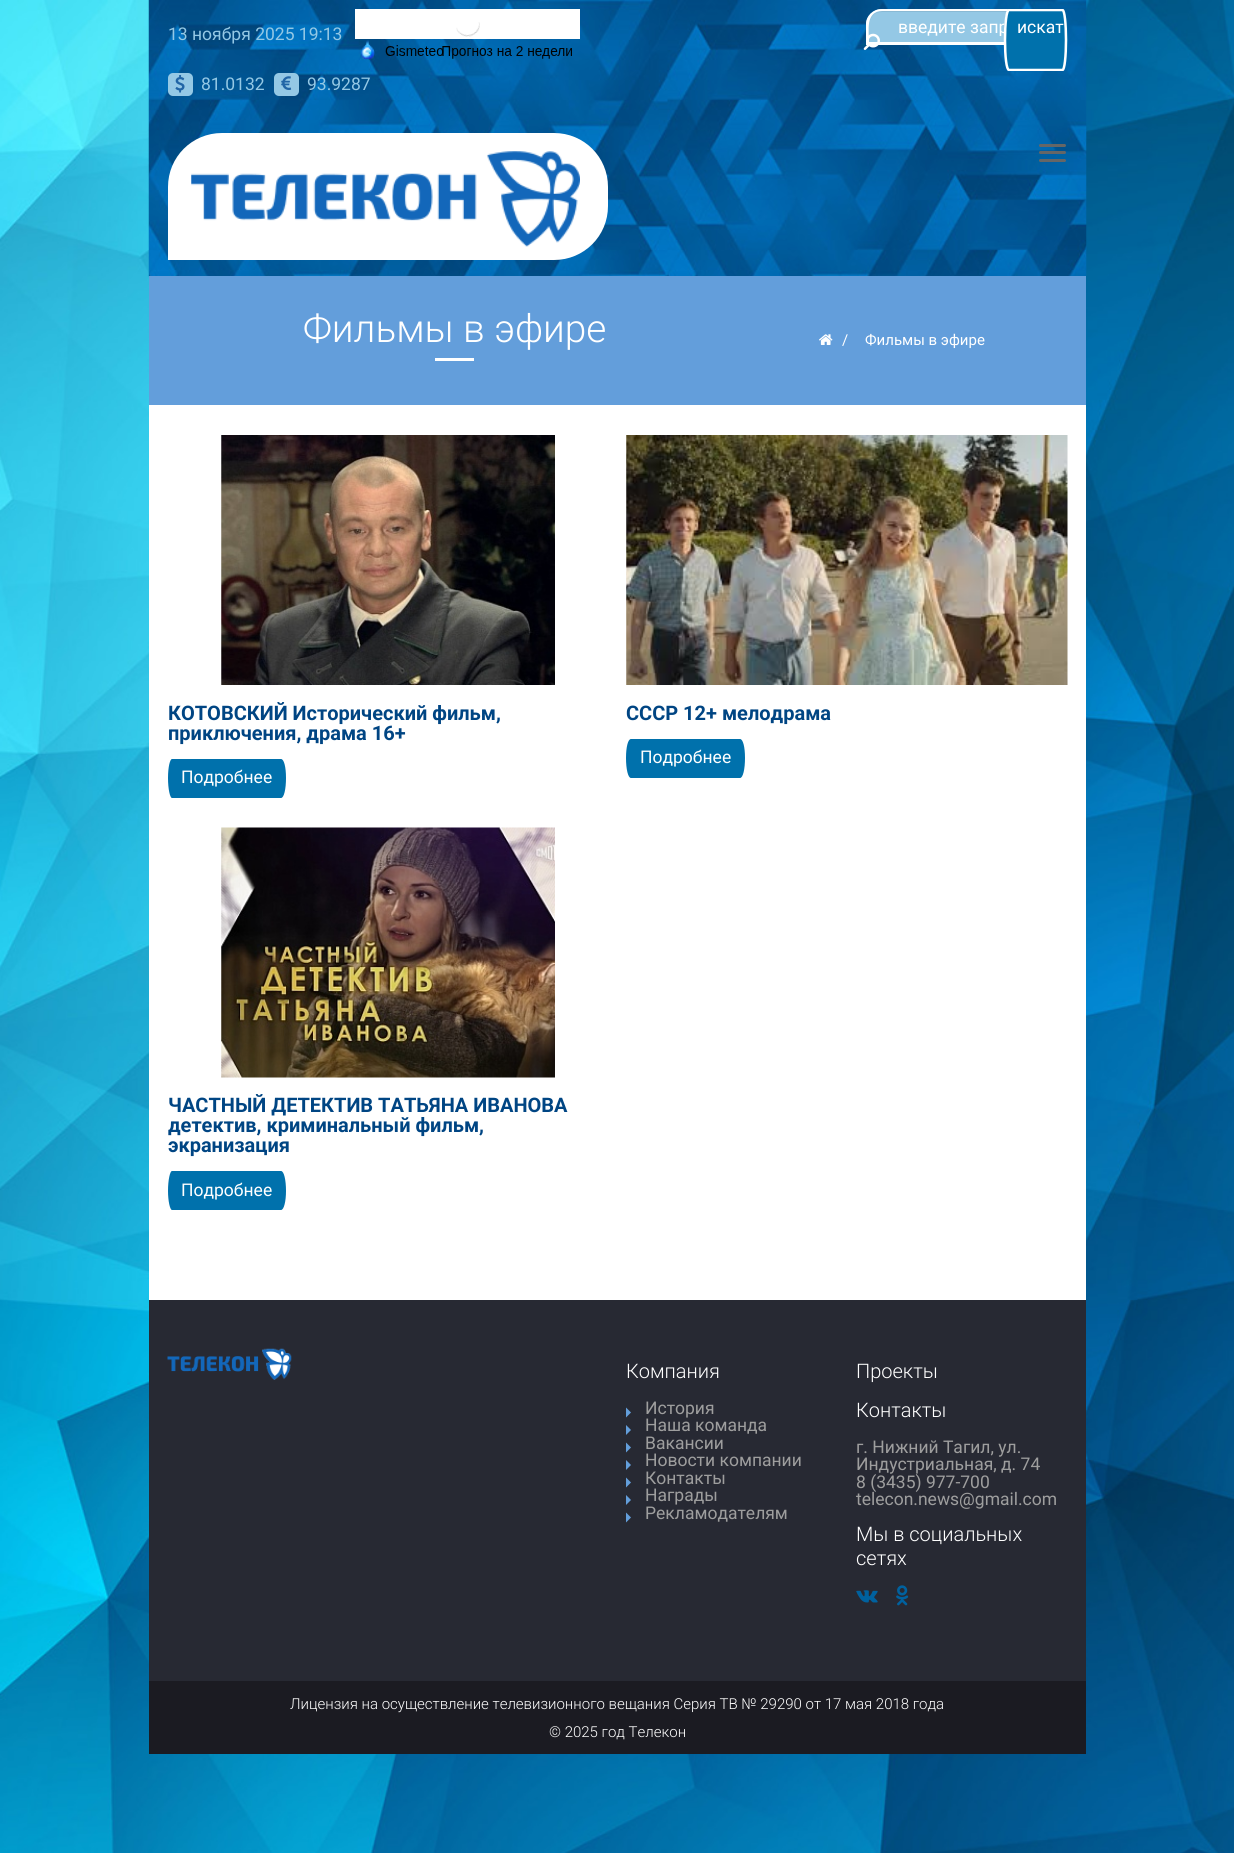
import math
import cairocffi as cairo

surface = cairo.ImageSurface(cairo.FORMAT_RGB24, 1234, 1853)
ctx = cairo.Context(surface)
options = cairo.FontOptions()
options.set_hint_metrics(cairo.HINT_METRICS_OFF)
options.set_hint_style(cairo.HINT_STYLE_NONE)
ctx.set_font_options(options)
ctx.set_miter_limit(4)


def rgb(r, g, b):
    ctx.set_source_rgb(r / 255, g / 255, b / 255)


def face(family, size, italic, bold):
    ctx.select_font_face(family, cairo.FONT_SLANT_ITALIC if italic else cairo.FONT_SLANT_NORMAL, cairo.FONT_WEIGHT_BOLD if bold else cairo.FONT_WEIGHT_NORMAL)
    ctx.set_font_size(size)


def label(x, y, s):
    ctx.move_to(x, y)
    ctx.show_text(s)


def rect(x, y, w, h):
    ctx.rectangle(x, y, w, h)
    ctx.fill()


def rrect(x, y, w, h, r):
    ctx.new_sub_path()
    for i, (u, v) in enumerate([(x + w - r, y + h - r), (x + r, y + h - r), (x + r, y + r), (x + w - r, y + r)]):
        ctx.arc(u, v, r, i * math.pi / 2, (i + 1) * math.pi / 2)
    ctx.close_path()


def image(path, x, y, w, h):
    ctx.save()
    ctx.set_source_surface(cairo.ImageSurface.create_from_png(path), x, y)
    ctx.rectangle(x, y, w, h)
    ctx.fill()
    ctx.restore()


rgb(255, 255, 255)
ctx.paint()
image('image0.png', 0, 0, 1234, 1853)
image('image1.png', 148, 0, 939, 277)
face('Roboto', 17.5, 0, 0)
rgb(148, 200, 229)
label(168, 40, '13 ноября 2025 19:13')
rgb(255, 255, 255)
rect(355, 9, 225, 30)
image('image2.png', 456, 22, 24, 15)
image('image3.png', 361, 40, 14, 19)
image('image4.png', 385, 45, 59, 11)
image('image5.png', 442, 46, 130, 13)
rgb(148, 200, 229)
rrect(168, 73, 25, 23, 5)
ctx.fill()
image('image6.png', 175, 75, 10, 18)
label(201, 90, '81.0132')
rrect(274, 73, 25, 23, 5)
ctx.fill()
image('image7.png', 281, 76, 11, 14)
label(307, 90, '93.9287')
ctx.new_path()
ctx.move_to(882, 9)
ctx.line_to(1014, 9)
ctx.line_to(1014, 45)
ctx.line_to(866, 45)
ctx.line_to(866, 25)
ctx.curve_to(866, 16, 873, 9, 882, 9)
ctx.close_path()
ctx.fill()
rgb(137, 185, 212)
ctx.new_path()
ctx.move_to(882, 12)
ctx.line_to(1014, 12)
ctx.line_to(1014, 11)
ctx.line_to(883, 11)
ctx.curve_to(875, 11, 869, 17, 869, 25)
ctx.curve_to(870, 18, 873, 12, 882, 12)
ctx.close_path()
ctx.fill()
rgb(255, 255, 255)
ctx.set_fill_rule(cairo.FILL_RULE_EVEN_ODD)
ctx.new_path()
ctx.move_to(882, 9)
ctx.line_to(1014, 9)
ctx.line_to(1014, 45)
ctx.line_to(866, 45)
ctx.line_to(866, 24)
ctx.curve_to(866, 16, 873, 9, 882, 9)
ctx.close_path()
ctx.move_to(882, 11)
ctx.line_to(1014, 11)
ctx.line_to(1014, 42)
ctx.line_to(869, 42)
ctx.curve_to(869, 32, 865, 11, 882, 11)
ctx.close_path()
ctx.fill()
ctx.save()
ctx.set_fill_rule(cairo.FILL_RULE_WINDING)
ctx.rectangle(899, 16, 106, 20)
ctx.clip()
label(898, 33, 'введите запр')
ctx.restore()
image('image8.png', 863, 33, 17, 17)
rgb(0, 113, 172)
ctx.set_fill_rule(cairo.FILL_RULE_WINDING)
ctx.new_path()
ctx.move_to(1009, 9)
ctx.line_to(1062, 9)
ctx.curve_to(1065, 9, 1068, 23, 1068, 40)
ctx.curve_to(1068, 57, 1065, 71, 1062, 71)
ctx.line_to(1009, 71)
ctx.curve_to(1006, 71, 1004, 57, 1004, 40)
ctx.curve_to(1004, 23, 1006, 9, 1009, 9)
ctx.close_path()
ctx.fill()
ctx.save()
ctx.rectangle(856, 9, 212, 62)
ctx.clip()
ctx.new_path()
ctx.move_to(1009, 10)
ctx.line_to(1062.5, 10)
ctx.curve_to(1064.5, 10, 1066, 23.5, 1066, 40)
ctx.curve_to(1066, 56.5, 1064.5, 70, 1062.5, 70)
ctx.line_to(1009, 70)
ctx.curve_to(1006.5, 70, 1005, 56.5, 1005, 40)
ctx.curve_to(1005, 23.5, 1006.5, 10, 1009, 10)
ctx.close_path()
rgb(255, 255, 255)
ctx.set_line_width(2.5)
ctx.stroke()
ctx.restore()
rgb(255, 255, 255)
label(1017, 33, 'искат')
ctx.new_path()
ctx.move_to(222, 133)
ctx.line_to(554, 133)
ctx.curve_to(584, 133, 608, 157, 608, 187)
ctx.line_to(608, 206)
ctx.curve_to(608, 236, 584, 260, 554, 260)
ctx.line_to(168, 260)
ctx.line_to(168, 187)
ctx.curve_to(168, 157, 192, 133, 222, 133)
ctx.close_path()
ctx.fill()
image('image9.png', 191, 151, 389, 96)
rgb(102, 102, 102)
rrect(1039, 144, 27, 3, 1.5)
ctx.fill()
rrect(1039, 151, 27, 3, 1.5)
ctx.fill()
rrect(1039, 159, 27, 3, 1.5)
ctx.fill()
rgb(99, 158, 219)
rect(149, 276, 937, 129)
face('Roboto Light', 38.75, 0, 0)
rgb(255, 255, 255)
label(303, 342, 'Фильмы в эфире')
rect(435, 358, 39, 3)
image('image10.png', 819, 334, 14, 11)
face('Roboto', 15, 0, 0)
label(842, 345, '/')
label(865, 345, 'Фильмы в эфире')
rect(149, 405, 937, 895)
image('image11.png', 221, 435, 334, 250)
face('Roboto', 20, 0, 1)
rgb(0, 69, 131)
label(168, 720, 'КОТОВСКИЙ Исторический фильм,')
label(168, 740, 'приключения, драма 16+')
rgb(0, 113, 172)
ctx.new_path()
ctx.move_to(172, 759)
ctx.line_to(281, 759)
ctx.curve_to(284, 759, 286, 767, 286, 778)
ctx.curve_to(286, 789, 284, 798, 281, 798)
ctx.line_to(172, 798)
ctx.curve_to(170, 798, 168, 789, 168, 778)
ctx.curve_to(168, 767, 170, 759, 172, 759)
ctx.close_path()
ctx.fill()
face('Roboto', 17.5, 0, 0)
rgb(255, 255, 255)
label(181, 783, 'Подробнее')
image('image12.png', 626, 435, 442, 250)
face('Roboto', 20, 0, 1)
rgb(0, 69, 131)
label(626, 720, 'СССР 12+ мелодрама')
rgb(0, 113, 172)
ctx.new_path()
ctx.move_to(631, 739)
ctx.line_to(740, 739)
ctx.curve_to(743, 739, 745, 747, 745, 758)
ctx.curve_to(745, 769, 743, 778, 740, 778)
ctx.line_to(631, 778)
ctx.curve_to(628, 778, 626, 769, 626, 758)
ctx.curve_to(626, 747, 628, 739, 631, 739)
ctx.close_path()
ctx.fill()
face('Roboto', 17.5, 0, 0)
rgb(255, 255, 255)
label(640, 763, 'Подробнее')
image('image13.png', 221, 827, 334, 251)
face('Roboto', 20, 0, 1)
rgb(0, 69, 131)
label(168, 1112, 'ЧАСТНЫЙ ДЕТЕКТИВ ТАТЬЯНА ИВАНОВА')
label(168, 1132, 'детектив, криминальный фильм,')
label(168, 1152, 'экранизация')
rgb(0, 113, 172)
ctx.new_path()
ctx.move_to(172, 1171)
ctx.line_to(281, 1171)
ctx.curve_to(284, 1171, 286, 1180, 286, 1191)
ctx.curve_to(286, 1201, 284, 1210, 281, 1210)
ctx.line_to(172, 1210)
ctx.curve_to(170, 1210, 168, 1201, 168, 1191)
ctx.curve_to(168, 1180, 170, 1171, 172, 1171)
ctx.close_path()
ctx.fill()
face('Roboto', 17.5, 0, 0)
rgb(255, 255, 255)
label(181, 1196, 'Подробнее')
rgb(39, 41, 51)
rect(149, 1300, 937, 381)
image('image14.png', 167, 1348, 125, 32)
face('Roboto Light', 20, 0, 0)
rgb(255, 255, 255)
label(626, 1378, 'Компания')
rgb(99, 158, 219)
ctx.new_path()
ctx.move_to(626, 1417.5)
ctx.line_to(626, 1407.5)
ctx.line_to(631, 1412.5)
ctx.close_path()
ctx.fill()
face('Roboto', 17.5, 0, 0)
rgb(158, 158, 158)
label(645, 1414, 'История')
rgb(99, 158, 219)
ctx.new_path()
ctx.move_to(626, 1435)
ctx.line_to(626, 1425)
ctx.line_to(631, 1430)
ctx.close_path()
ctx.fill()
rgb(158, 158, 158)
label(645, 1431, 'Наша команда')
rgb(99, 158, 219)
ctx.new_path()
ctx.move_to(626, 1452.5)
ctx.line_to(626, 1442.5)
ctx.line_to(631, 1447.5)
ctx.close_path()
ctx.fill()
rgb(158, 158, 158)
label(645, 1449, 'Вакансии')
rgb(99, 158, 219)
ctx.new_path()
ctx.move_to(626, 1470)
ctx.line_to(626, 1460)
ctx.line_to(631, 1465)
ctx.close_path()
ctx.fill()
rgb(158, 158, 158)
label(645, 1466, 'Новости компании')
rgb(99, 158, 219)
ctx.new_path()
ctx.move_to(626, 1487.5)
ctx.line_to(626, 1477.5)
ctx.line_to(631, 1482.5)
ctx.close_path()
ctx.fill()
rgb(158, 158, 158)
label(645, 1484, 'Контакты')
rgb(99, 158, 219)
ctx.new_path()
ctx.move_to(626, 1505)
ctx.line_to(626, 1495)
ctx.line_to(631, 1500)
ctx.close_path()
ctx.fill()
rgb(158, 158, 158)
label(645, 1501, 'Награды')
rgb(99, 158, 219)
ctx.new_path()
ctx.move_to(626, 1522.5)
ctx.line_to(626, 1512.5)
ctx.line_to(631, 1517.5)
ctx.close_path()
ctx.fill()
rgb(158, 158, 158)
label(645, 1519, 'Рекламодателям')
face('Roboto Light', 20, 0, 0)
rgb(255, 255, 255)
label(856, 1378, 'Проекты')
label(856, 1417, 'Контакты')
face('Roboto', 17.5, 0, 0)
rgb(158, 158, 158)
label(856, 1453, 'г. Нижний Тагил, ул.')
label(856, 1470, 'Индустриальная, д. 74')
label(856, 1488, '8 (3435) 977-700')
label(856, 1505, 'telecon.news@gmail.com')
face('Roboto Light', 20, 0, 0)
rgb(255, 255, 255)
label(856, 1541, 'Мы в социальных')
label(856, 1565, 'сетях')
image('image15.png', 856, 1590, 22, 13)
image('image16.png', 896, 1585, 13, 21)
rgb(27, 27, 34)
rect(149, 1681, 937, 73)
face('Roboto Light', 15, 0, 0)
rgb(255, 255, 255)
label(290, 1709, 'Лицензия на осуществление телевизионного вещания Серия ТВ № 29290 от 17 мая 2018 года')
label(549, 1737, '© 2025 год Телекон')
surface.write_to_png('render.png')
